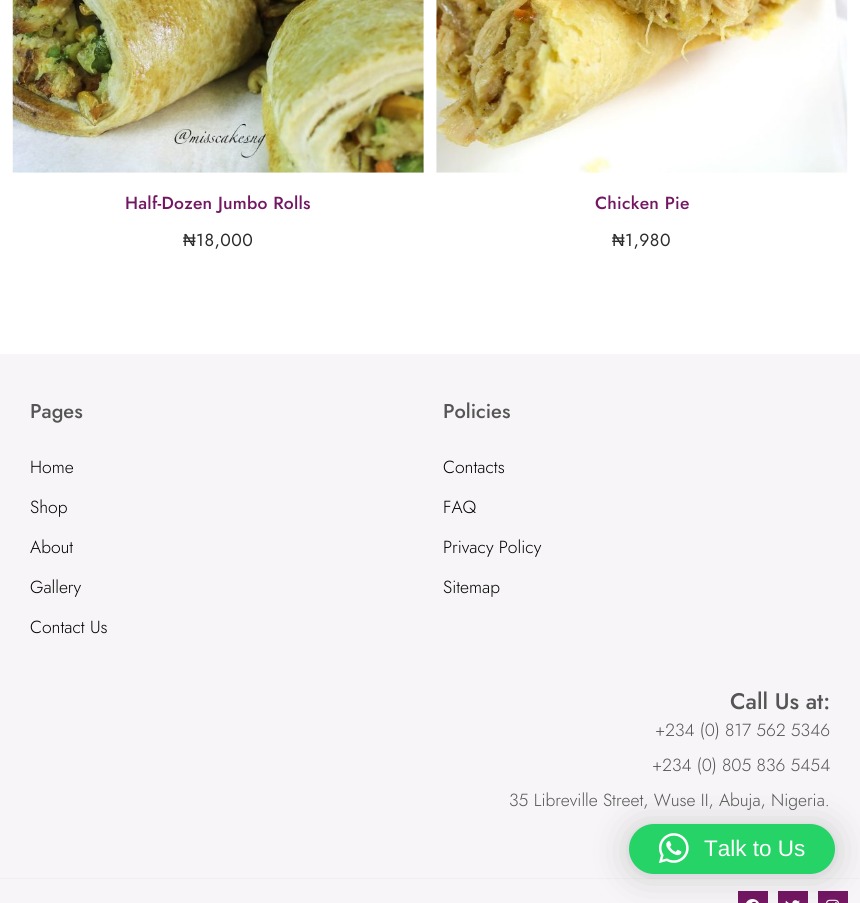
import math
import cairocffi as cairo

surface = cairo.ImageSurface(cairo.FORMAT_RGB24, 860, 903)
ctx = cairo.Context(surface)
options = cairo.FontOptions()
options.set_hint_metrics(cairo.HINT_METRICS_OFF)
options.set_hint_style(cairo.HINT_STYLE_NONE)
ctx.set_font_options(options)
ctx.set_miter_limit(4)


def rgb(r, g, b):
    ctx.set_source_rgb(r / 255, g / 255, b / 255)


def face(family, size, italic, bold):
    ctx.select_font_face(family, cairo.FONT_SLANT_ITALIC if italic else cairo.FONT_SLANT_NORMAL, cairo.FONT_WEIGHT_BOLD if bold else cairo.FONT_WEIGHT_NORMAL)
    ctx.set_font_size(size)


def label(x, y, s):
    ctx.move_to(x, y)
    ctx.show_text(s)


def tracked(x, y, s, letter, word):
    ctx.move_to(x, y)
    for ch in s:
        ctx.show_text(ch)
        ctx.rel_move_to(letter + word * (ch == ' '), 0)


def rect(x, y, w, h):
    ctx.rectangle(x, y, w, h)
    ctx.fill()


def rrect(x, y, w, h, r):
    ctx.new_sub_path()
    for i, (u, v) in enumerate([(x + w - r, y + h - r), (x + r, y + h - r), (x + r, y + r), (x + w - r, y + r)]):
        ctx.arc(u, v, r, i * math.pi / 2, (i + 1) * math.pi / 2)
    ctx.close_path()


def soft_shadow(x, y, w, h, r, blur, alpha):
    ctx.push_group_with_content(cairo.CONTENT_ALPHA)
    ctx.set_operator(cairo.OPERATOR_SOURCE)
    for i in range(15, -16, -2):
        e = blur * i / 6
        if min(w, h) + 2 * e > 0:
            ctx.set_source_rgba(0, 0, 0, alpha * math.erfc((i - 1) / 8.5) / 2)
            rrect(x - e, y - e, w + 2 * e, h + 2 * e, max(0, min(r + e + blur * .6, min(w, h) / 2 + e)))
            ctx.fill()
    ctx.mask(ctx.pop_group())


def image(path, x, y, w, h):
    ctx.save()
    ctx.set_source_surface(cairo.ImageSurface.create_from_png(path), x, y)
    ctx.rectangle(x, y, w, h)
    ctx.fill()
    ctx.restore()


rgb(255, 255, 255)
ctx.paint()
image('image0.png', 12, 0, 412, 173)
face('Jost Medium', 17.5, 0, 0)
rgb(115, 23, 99)
tracked(125, 209, 'Half-Dozen Jumbo Rolls', 0.25, 0)
face('Liberation Sans', 17.5, 0, 0)
rgb(43, 43, 43)
tracked(183, 246, '₦', 0.5, 0)
face('Jost', 17.5, 0, 0)
tracked(196, 246, '18,000', 0.5, 0)
image('image1.png', 436, 0, 412, 173)
face('Jost Medium', 17.5, 0, 0)
rgb(115, 23, 99)
tracked(595, 209, 'Chicken Pie', 0.25, 0)
face('Liberation Sans', 17.5, 0, 0)
rgb(43, 43, 43)
tracked(612, 246, '₦', 0.5, 0)
face('Jost', 17.5, 0, 0)
tracked(625, 246, '1,980', 0.5, 0)
rgb(247, 245, 247)
rect(0, 354, 860, 524)
rgb(240, 240, 240)
rect(0, 878, 860, 1)
face('Jost Medium', 20, 0, 0)
rgb(85, 85, 85)
label(30, 418, 'Pages')
face('Jost Light', 17.5, 0, 0)
rgb(0, 0, 0)
label(30, 473, 'Home')
label(30, 513, 'Shop')
label(30, 553, 'About')
label(30, 593, 'Gallery')
label(30, 633, 'Contact Us')
face('Jost Medium', 20, 0, 0)
rgb(85, 85, 85)
label(443, 418, 'Policies')
face('Jost Light', 17.5, 0, 0)
rgb(0, 0, 0)
label(443, 473, 'Contacts')
label(443, 513, 'FAQ')
label(443, 553, 'Privacy Policy')
label(443, 593, 'Sitemap')
face('Jost Medium', 22.5, 0, 0)
rgb(85, 85, 85)
label(730, 709, 'Call Us at:')
face('Jost Light', 17.5, 0, 0)
label(655, 736, '+234 (0) 817 562 5346')
label(652, 771, '+234 (0) 805 836 5454')
label(509, 806, '35 Libreville Street, Wuse II, Abuja, Nigeria.')
rgb(247, 245, 247)
rect(0, 879, 860, 24)
rgb(115, 23, 99)
rect(738, 891, 30, 12)
image('image2.png', 746, 899, 13, 4)
rect(778, 891, 30, 12)
image('image3.png', 785, 900, 15, 3)
rect(818, 891, 30, 12)
image('image4.png', 826, 899, 13, 4)
rgb(0, 0, 0)
soft_shadow(629, 826, 206, 50, 25, 20, 0.16)
soft_shadow(629, 825, 206, 50, 25, 4, 0.06)
rgb(37, 211, 102)
rrect(629, 824, 206, 50, 25)
ctx.fill()
image('image5.png', 658, 833, 31, 30)
face('Liberation Sans', 22.5, 0, 0)
rgb(255, 255, 255)
label(704, 856, 'Talk to Us')
surface.write_to_png('render.png')
